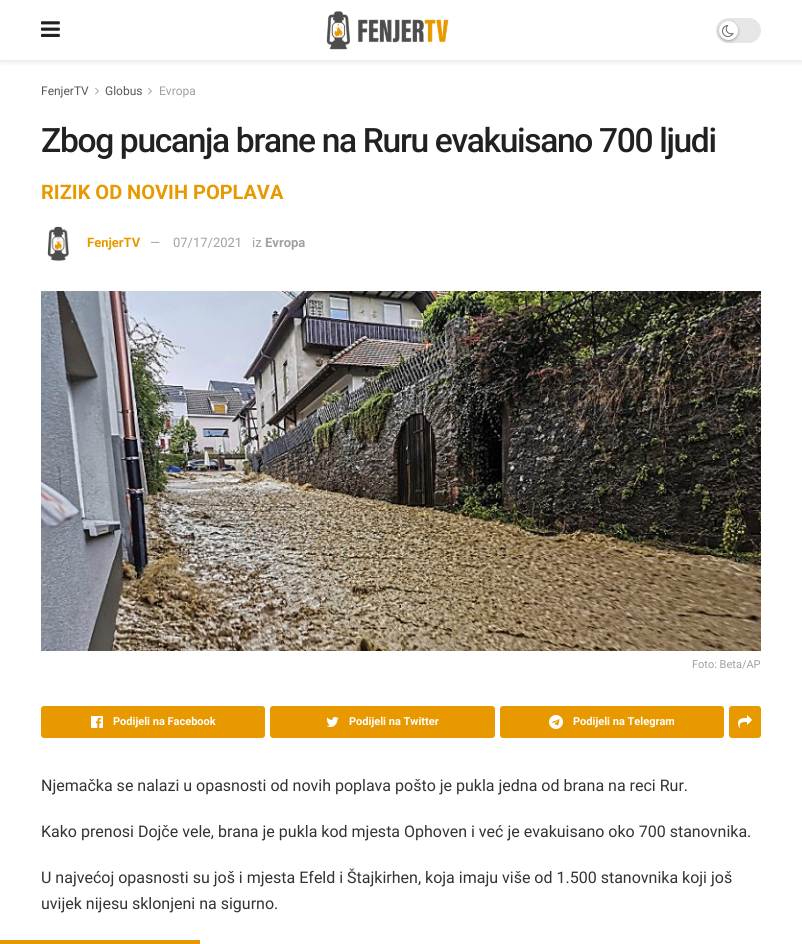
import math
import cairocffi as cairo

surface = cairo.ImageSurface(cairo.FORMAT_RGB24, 802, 944)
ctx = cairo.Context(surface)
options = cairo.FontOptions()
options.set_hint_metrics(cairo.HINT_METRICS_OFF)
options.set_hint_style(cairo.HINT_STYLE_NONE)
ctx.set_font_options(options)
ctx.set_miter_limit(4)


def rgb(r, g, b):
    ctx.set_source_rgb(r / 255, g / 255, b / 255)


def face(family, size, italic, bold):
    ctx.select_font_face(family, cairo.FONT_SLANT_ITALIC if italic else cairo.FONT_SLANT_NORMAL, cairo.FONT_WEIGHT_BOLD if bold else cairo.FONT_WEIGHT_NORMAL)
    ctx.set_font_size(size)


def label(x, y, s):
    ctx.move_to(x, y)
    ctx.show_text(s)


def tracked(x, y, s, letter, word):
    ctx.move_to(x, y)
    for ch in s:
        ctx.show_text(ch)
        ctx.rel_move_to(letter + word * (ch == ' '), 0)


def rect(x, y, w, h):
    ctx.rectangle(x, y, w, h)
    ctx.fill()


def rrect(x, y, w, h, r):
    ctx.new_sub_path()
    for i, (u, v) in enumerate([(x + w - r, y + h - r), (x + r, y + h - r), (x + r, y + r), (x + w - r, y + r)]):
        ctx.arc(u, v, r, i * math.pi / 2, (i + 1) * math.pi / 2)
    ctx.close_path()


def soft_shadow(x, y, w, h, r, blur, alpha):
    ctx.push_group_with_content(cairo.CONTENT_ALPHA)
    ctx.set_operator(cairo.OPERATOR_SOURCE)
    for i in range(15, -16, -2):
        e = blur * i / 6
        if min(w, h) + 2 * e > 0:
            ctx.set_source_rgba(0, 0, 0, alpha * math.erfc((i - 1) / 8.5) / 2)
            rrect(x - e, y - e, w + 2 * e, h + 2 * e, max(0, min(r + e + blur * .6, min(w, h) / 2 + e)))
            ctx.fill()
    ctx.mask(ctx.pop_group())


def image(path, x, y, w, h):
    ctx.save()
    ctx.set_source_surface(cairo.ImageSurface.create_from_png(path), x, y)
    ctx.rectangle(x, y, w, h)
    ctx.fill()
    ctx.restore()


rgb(255, 255, 255)
ctx.paint()
ctx.save()
ctx.rectangle(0, 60, 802, 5)
ctx.clip()
rgb(0, 0, 0)
soft_shadow(0, 2, 802, 60, 0, 3, 0.1)
ctx.restore()
image('image0.png', 41, 21, 19, 16)
image('image1.png', 326, 11, 123, 39)
rgb(230, 230, 230)
rrect(716, 18, 45, 25, 12.5)
ctx.fill()
rgb(0, 0, 0)
soft_shadow(719, 22, 19, 19, 9.5, 1.5, 0.3)
rgb(255, 255, 255)
ctx.arc(728.5, 30.5, 9.5, 0, 2 * math.pi)
ctx.fill()
image('image2.png', 722, 25, 12, 12)
face('Roboto', 12, 0, 0)
rgb(83, 88, 92)
label(41, 95, 'FenjerTV')
image('image3.png', 95, 87, 4, 8)
label(105, 95, 'Globus')
image('image3.png', 148, 87, 4, 8)
rgb(160, 160, 160)
label(159, 95, 'Evropa')
face('Roboto Medium', 33.6, 0, 0)
rgb(33, 33, 33)
tracked(41, 152, 'Zbog pucanja brane na Ruru evakuisano 700 ljudi', -1.35, 0)
face('Roboto', 20, 0, 1)
rgb(232, 153, 0)
label(41, 199, 'RIZIK OD NOVIH POPLAVA')
image('image4.png', 47, 226, 22, 35)
face('Roboto', 13, 0, 1)
label(87, 247, 'FenjerTV')
face('Roboto', 13, 0, 0)
rgb(160, 160, 160)
label(150, 247, '—')
label(173, 247, '07/17/2021')
label(252, 247, 'iz')
face('Roboto', 13, 0, 1)
label(265, 247, 'Evropa')
image('image5.png', 41, 291, 720, 360)
face('Roboto', 11, 0, 0)
label(692, 668, 'Foto: Beta/AP')
rgb(232, 153, 0)
rrect(41, 706, 224, 32, 3)
ctx.fill()
image('image6.png', 91, 716, 12, 12)
face('Roboto', 11, 0, 1)
rgb(255, 255, 255)
label(113, 725, 'Podijeli na Facebook')
rgb(232, 153, 0)
rrect(270, 706, 225, 32, 3)
ctx.fill()
image('image7.png', 326, 717, 13, 10)
rgb(255, 255, 255)
label(349, 725, 'Podijeli na Twitter')
rgb(232, 153, 0)
rrect(500, 706, 224, 32, 3)
ctx.fill()
image('image8.png', 549, 715, 14, 14)
rgb(255, 255, 255)
label(573, 725, 'Podijeli na Telegram')
rgb(232, 153, 0)
rrect(729, 706, 32, 32, 3)
ctx.fill()
image('image9.png', 738, 715, 14, 13)
face('Roboto', 16, 0, 0)
rgb(51, 51, 51)
label(41, 791, 'Njemačka se nalazi u opasnosti od novih poplava pošto je pukla jedna od brana na reci Rur.')
label(41, 837, 'Kako prenosi Dojče vele, brana je pukla kod mjesta Ophoven i već je evakuisano oko 700 stanovnika.')
label(41, 883, 'U najvećoj opasnosti su još i mjesta Efeld i Štajkirhen, koja imaju više od 1.500 stanovnika koji još')
label(41, 909, 'uvijek nijesu sklonjeni na sigurno.')
rgb(232, 153, 0)
rect(0, 940, 200, 4)
surface.write_to_png('render.png')
